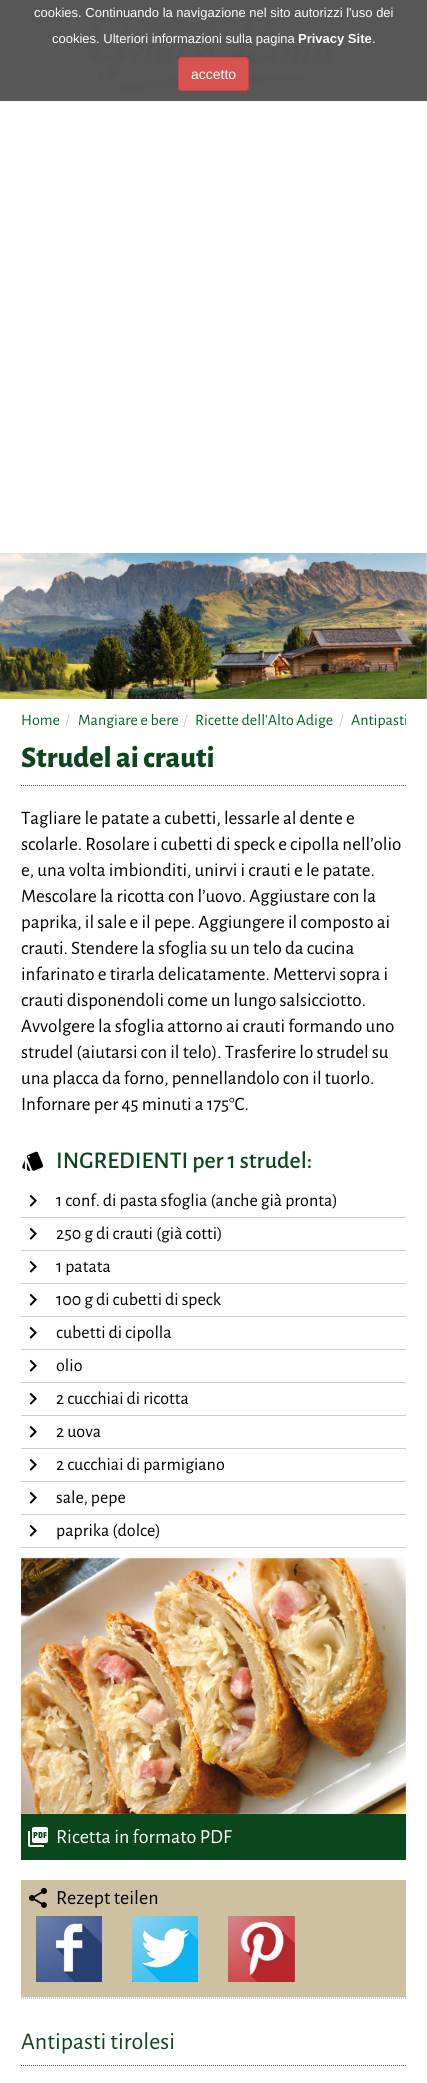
import math
import cairocffi as cairo

surface = cairo.ImageSurface(cairo.FORMAT_RGB24, 427, 2083)
ctx = cairo.Context(surface)
options = cairo.FontOptions()
options.set_hint_metrics(cairo.HINT_METRICS_OFF)
options.set_hint_style(cairo.HINT_STYLE_NONE)
ctx.set_font_options(options)
ctx.set_miter_limit(4)


def rgb(r, g, b):
    ctx.set_source_rgb(r / 255, g / 255, b / 255)


def face(family, size, italic, bold):
    ctx.select_font_face(family, cairo.FONT_SLANT_ITALIC if italic else cairo.FONT_SLANT_NORMAL, cairo.FONT_WEIGHT_BOLD if bold else cairo.FONT_WEIGHT_NORMAL)
    ctx.set_font_size(size)


def label(x, y, s):
    ctx.move_to(x, y)
    ctx.show_text(s)


def rect(x, y, w, h):
    ctx.rectangle(x, y, w, h)
    ctx.fill()


def rrect(x, y, w, h, r):
    ctx.new_sub_path()
    for i, (u, v) in enumerate([(x + w - r, y + h - r), (x + r, y + h - r), (x + r, y + r), (x + w - r, y + r)]):
        ctx.arc(u, v, r, i * math.pi / 2, (i + 1) * math.pi / 2)
    ctx.close_path()


def image(path, x, y, w, h):
    ctx.save()
    ctx.set_source_surface(cairo.ImageSurface.create_from_png(path), x, y)
    ctx.rectangle(x, y, w, h)
    ctx.fill()
    ctx.restore()


rgb(255, 255, 255)
ctx.paint()
rgb(87, 87, 87)
rect(0, 0, 427, 101)
image('image0.png', 86, 12, 250, 79)
face('Liberation Sans', 13, 0, 0)
rgb(255, 255, 255)
label(34, 17, 'cookies. Continuando la navigazione nel sito autorizzi l\'uso dei')
label(52, 43, 'cookies. Ulteriori informazioni sulla pagina')
face('Liberation Sans', 13, 0, 1)
label(298, 43, 'Privacy Site')
face('Liberation Sans', 13, 0, 0)
label(372, 43, '.')
rgb(216, 83, 79)
rrect(178, 57, 71, 34, 4)
ctx.fill()
rrect(178.5, 57.5, 70, 33, 3.5)
ctx.set_source_rgba(0.831, 0.247, 0.227, 0.99)
ctx.set_line_width(1)
ctx.stroke()
face('Liberation Sans', 14, 0, 0)
rgb(255, 255, 255)
label(191, 79, 'accetto')
image('image1.png', 0, 553, 427, 146)
face('Alegreya Sans', 16, 0, 0)
rgb(7, 99, 36)
label(21, 725, 'Home')
rgb(204, 204, 204)
label(65, 725, '/')
rgb(7, 99, 36)
label(78, 725, 'Mangiare e bere')
rgb(204, 204, 204)
label(183, 725, '/')
rgb(7, 99, 36)
label(195, 725, 'Ricette dell\'Alto Adige')
rgb(204, 204, 204)
label(339, 725, '/')
ctx.save()
rrect(21, 699, 385, 43, 4)
ctx.clip()
rgb(7, 99, 36)
label(351, 725, 'Antipasti')
ctx.restore()
face('Alegreya Sans ExtraBold', 30, 0, 0)
rgb(11, 71, 29)
label(21, 767, 'Strudel ai crauti')
ctx.new_path()
ctx.move_to(21, 785.5)
ctx.line_to(406, 785.5)
rgb(85, 85, 85)
ctx.set_dash([1, 1])
ctx.stroke()
face('Alegreya Sans', 19, 0, 0)
rgb(0, 0, 0)
label(21, 824, 'Tagliare le patate a cubetti, lessarle al dente e')
label(21, 850, 'scolarle. Rosolare i cubetti di speck e cipolla nell’olio')
label(21, 876, 'e, una volta imbionditi, unirvi i crauti e le patate.')
label(21, 902, 'Mescolare la ricotta con l’uovo. Aggiustare con la')
label(21, 928, 'paprika, il sale e il pepe. Aggiungere il composto ai')
label(21, 954, 'crauti. Stendere la sfoglia su un telo da cucina')
label(21, 980, 'infarinato e tirarla delicatamente. Mettervi sopra i')
label(21, 1006, 'crauti disponendoli come un lungo salsicciotto.')
label(21, 1032, 'Avvolgere la sfoglia attorno ai crauti formando uno')
label(21, 1058, 'strudel (aiutarsi con il telo). Trasferire lo strudel su')
label(21, 1084, 'una placca da forno, pennellandolo con il tuorlo.')
label(21, 1110, 'Infornare per 45 minuti a 175°C.')
image('image2.png', 22, 1151, 22, 20)
face('Alegreya Sans Medium', 24, 0, 0)
rgb(11, 71, 29)
label(56, 1168, 'INGREDIENTI per 1 strudel:')
image('image3.png', 29, 1194, 8, 13)
rgb(204, 204, 204)
rect(21, 1217, 385, 1)
face('Alegreya Sans', 18, 0, 0)
rgb(0, 0, 0)
label(56, 1206, '1 conf. di pasta sfoglia (anche già pronta)')
image('image3.png', 29, 1227, 8, 13)
rgb(204, 204, 204)
rect(21, 1250, 385, 1)
rgb(0, 0, 0)
label(56, 1239, '250 g di crauti (già cotti)')
image('image3.png', 29, 1260, 8, 13)
rgb(204, 204, 204)
rect(21, 1283, 385, 1)
rgb(0, 0, 0)
label(56, 1272, '1 patata')
image('image3.png', 29, 1293, 8, 13)
rgb(204, 204, 204)
rect(21, 1316, 385, 1)
rgb(0, 0, 0)
label(56, 1305, '100 g di cubetti di speck')
image('image3.png', 29, 1326, 8, 13)
rgb(204, 204, 204)
rect(21, 1349, 385, 1)
rgb(0, 0, 0)
label(56, 1338, 'cubetti di cipolla')
image('image3.png', 29, 1359, 8, 13)
rgb(204, 204, 204)
rect(21, 1382, 385, 1)
rgb(0, 0, 0)
label(56, 1371, 'olio')
image('image3.png', 29, 1392, 8, 13)
rgb(204, 204, 204)
rect(21, 1415, 385, 1)
rgb(0, 0, 0)
label(56, 1404, '2 cucchiai di ricotta')
image('image3.png', 29, 1425, 8, 13)
rgb(204, 204, 204)
rect(21, 1448, 385, 1)
rgb(0, 0, 0)
label(56, 1437, '2 uova')
image('image3.png', 29, 1458, 8, 13)
rgb(204, 204, 204)
rect(21, 1481, 385, 1)
rgb(0, 0, 0)
label(56, 1470, '2 cucchiai di parmigiano')
image('image3.png', 29, 1491, 8, 13)
rgb(204, 204, 204)
rect(21, 1514, 385, 1)
rgb(0, 0, 0)
label(56, 1503, 'sale, pepe')
image('image3.png', 29, 1524, 8, 13)
rgb(204, 204, 204)
rect(21, 1547, 385, 1)
rgb(0, 0, 0)
label(56, 1536, 'paprika (dolce)')
image('image4.png', 21, 1557, 385, 257)
rgb(11, 71, 29)
rect(21, 1814, 385, 46)
image('image5.png', 28, 1827, 20, 20)
face('Alegreya Sans', 20, 0, 0)
rgb(255, 255, 255)
label(56, 1843, 'Ricetta in formato PDF')
rgb(206, 193, 161)
rect(21, 1880, 385, 117)
image('image6.png', 29, 1888, 18, 20)
rgb(0, 0, 0)
label(56, 1904, 'Rezept teilen')
image('image7.png', 36, 1916, 66, 66)
image('image8.png', 132, 1916, 66, 66)
image('image9.png', 228, 1916, 67, 66)
ctx.new_path()
ctx.move_to(21, 1997.5)
ctx.line_to(406, 1997.5)
rgb(204, 204, 204)
ctx.stroke()
rect(405, 1997, 1, 2)
ctx.new_path()
ctx.move_to(21, 1998.5)
ctx.line_to(406, 1998.5)
ctx.stroke()
face('Alegreya Sans', 24, 0, 0)
rgb(11, 71, 29)
label(21, 2049, 'Antipasti tirolesi')
ctx.new_path()
ctx.move_to(21, 2065.5)
ctx.line_to(406, 2065.5)
rgb(85, 85, 85)
ctx.stroke()
surface.write_to_png('render.png')
